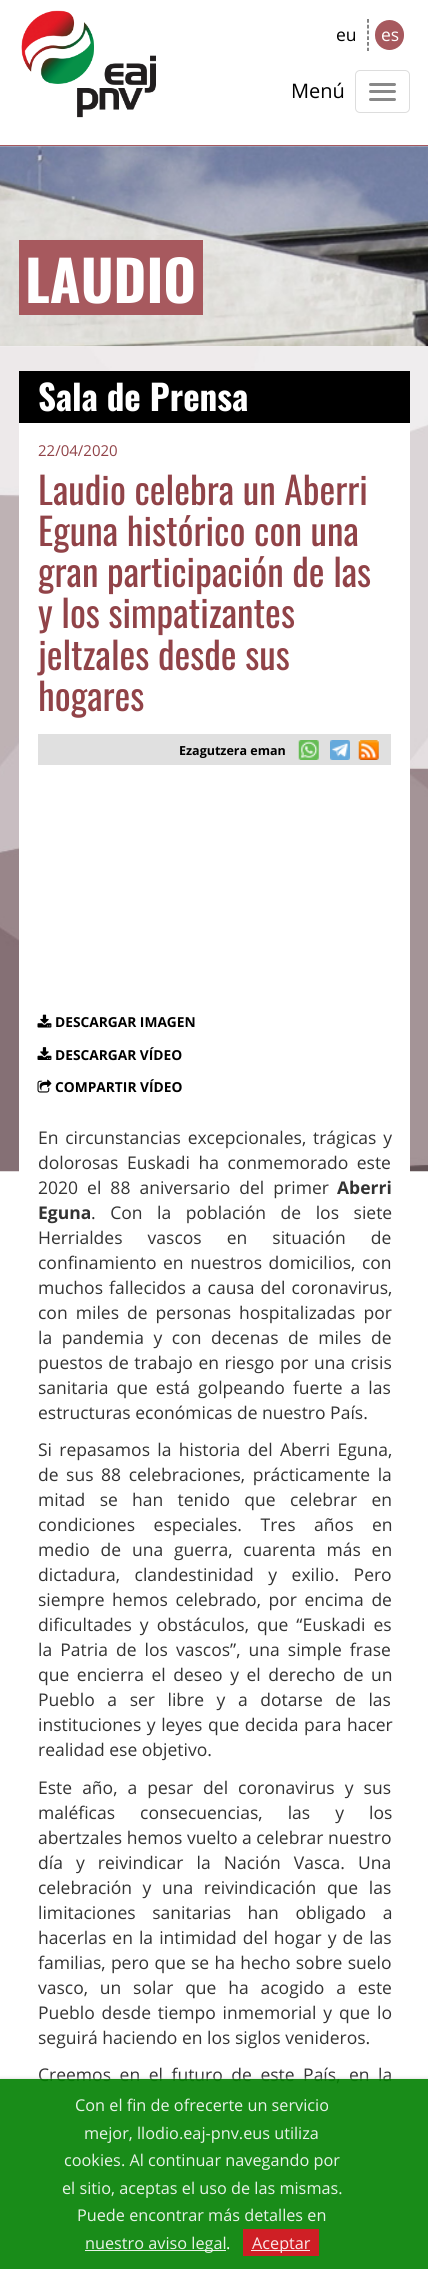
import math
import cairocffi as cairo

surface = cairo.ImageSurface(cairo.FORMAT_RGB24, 428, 2269)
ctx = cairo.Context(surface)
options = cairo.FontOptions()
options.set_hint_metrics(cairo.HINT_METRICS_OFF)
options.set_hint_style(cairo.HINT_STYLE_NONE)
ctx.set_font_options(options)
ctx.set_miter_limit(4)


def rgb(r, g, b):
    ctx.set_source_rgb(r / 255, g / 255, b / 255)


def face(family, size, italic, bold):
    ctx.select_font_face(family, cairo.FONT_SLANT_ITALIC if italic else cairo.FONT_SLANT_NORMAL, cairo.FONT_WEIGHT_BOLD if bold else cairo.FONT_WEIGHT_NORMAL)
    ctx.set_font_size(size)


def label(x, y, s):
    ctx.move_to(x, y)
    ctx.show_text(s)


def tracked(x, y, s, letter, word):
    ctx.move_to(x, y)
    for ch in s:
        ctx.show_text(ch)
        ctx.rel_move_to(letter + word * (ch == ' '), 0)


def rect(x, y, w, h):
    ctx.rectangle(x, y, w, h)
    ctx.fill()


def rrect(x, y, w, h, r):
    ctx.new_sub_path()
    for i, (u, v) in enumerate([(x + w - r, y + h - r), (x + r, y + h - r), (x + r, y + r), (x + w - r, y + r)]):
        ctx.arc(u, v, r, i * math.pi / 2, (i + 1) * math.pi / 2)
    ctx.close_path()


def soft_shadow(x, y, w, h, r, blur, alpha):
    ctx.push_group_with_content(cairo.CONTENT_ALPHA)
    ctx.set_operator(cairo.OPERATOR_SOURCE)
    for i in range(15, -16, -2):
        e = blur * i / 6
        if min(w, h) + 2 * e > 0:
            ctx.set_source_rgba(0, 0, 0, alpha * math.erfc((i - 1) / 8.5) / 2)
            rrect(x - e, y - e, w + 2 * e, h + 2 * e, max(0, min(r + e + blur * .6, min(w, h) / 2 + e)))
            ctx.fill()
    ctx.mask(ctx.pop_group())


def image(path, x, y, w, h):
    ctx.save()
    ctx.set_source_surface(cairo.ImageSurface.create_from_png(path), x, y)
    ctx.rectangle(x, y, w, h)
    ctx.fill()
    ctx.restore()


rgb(255, 255, 255)
ctx.paint()
image('image0.png', 21, 10, 135, 108)
ctx.new_path()
ctx.move_to(368, 19)
ctx.line_to(368, 51)
rgb(51, 51, 51)
ctx.set_line_width(1.2)
ctx.set_dash([3.75, 2])
ctx.stroke()
face('Open Sans', 17.5, 0, 0)
rgb(0, 0, 0)
label(336, 41, 'eu')
rgb(167, 89, 94)
rrect(375, 20, 29, 30, 14.5)
ctx.fill()
rgb(255, 255, 255)
label(381, 41, 'es')
face('Open Sans', 20, 0, 0)
rgb(0, 0, 0)
label(291, 98, 'Menú')
rrect(355.5, 70.5, 54, 42, 4.5)
rgb(221, 221, 221)
ctx.set_line_width(1)
ctx.set_dash([])
ctx.stroke()
rgb(136, 136, 136)
rrect(369, 83, 27, 3, 1.5)
ctx.fill()
rrect(369, 90, 27, 3, 1.5)
ctx.fill()
rrect(369, 98, 27, 3, 1.5)
ctx.fill()
rgb(167, 89, 94)
rect(0, 145, 428, 1)
image('image1.png', 0, 146, 428, 201)
rect(19, 240, 184, 75)
face('Oswald', 56, 0, 1)
rgb(255, 255, 255)
label(25, 303, 'LAUDIO')
image('image2.png', 0, 346, 428, 826)
rgb(0, 0, 0)
rect(19, 371, 391, 52)
face('Oswald', 35, 0, 1)
rgb(255, 255, 255)
label(38, 411, 'Sala de Prensa')
rect(19, 423, 391, 749)
face('Open Sans', 15, 0, 0)
rgb(145, 67, 72)
label(38, 456, '22/04/2020')
face('Oswald', 37.5, 0, 0)
label(38, 505, 'Laudio celebra un Aberri')
label(38, 546, 'Eguna histórico con una')
label(38, 587, 'gran participación de las')
label(38, 628, 'y los simpatizantes')
label(38, 670, 'jeltzales desde sus')
label(38, 711, 'hogares')
rgb(224, 224, 224)
rect(38, 734, 353, 31)
face('Open Sans', 12.5, 0, 1)
rgb(0, 0, 0)
label(179, 755, 'Ezagutzera eman')
image('image3.png', 298, 740, 21, 20)
image('image4.png', 330, 740, 20, 20)
image('image5.png', 358, 740, 21, 20)
image('image6.png', 37, 1014, 15, 14)
face('Open Sans', 13.75, 0, 1)
label(55, 1027, 'DESCARGAR IMAGEN')
image('image7.png', 37, 1047, 15, 13)
label(55, 1060, 'DESCARGAR VÍDEO')
image('image8.png', 37, 1079, 15, 14)
label(55, 1092, 'COMPARTIR VÍDEO')
face('Open Sans', 17.5, 0, 0)
rgb(51, 51, 51)
tracked(38, 1144, 'En circunstancias excepcionales, trágicas y', 0, 2.25)
tracked(38, 1169, 'dolorosas Euskadi ha conmemorado este', 0, 4)
tracked(38, 1194, '2020 el 88 aniversario del primer', 0, 4.5)
face('Open Sans', 17.5, 0, 1)
label(337, 1194, 'Aberri')
label(38, 1219, 'Eguna')
face('Open Sans', 17.5, 0, 0)
tracked(91, 1219, '. Con la población de los siete', 0, 10)
tracked(38, 1244, 'Herrialdes vascos en situación de', 0, 20.5)
tracked(38, 1269, 'confinamiento en nuestros domicilios, con', 0, 2)
tracked(38, 1294, 'muchos fallecidos a causa del coronavirus,', 0, 1.5)
tracked(38, 1319, 'con miles de personas hospitalizadas por', 0, 3.5)
tracked(38, 1344, 'la pandemia y con decenas de miles de', 0, 5)
tracked(38, 1369, 'puestos de trabajo en riesgo por una crisis', 0, 1)
tracked(38, 1394, 'sanitaria que está golpeando fuerte a las', 0, 3.5)
label(38, 1419, 'estructuras económicas de nuestro País.')
tracked(38, 1456, 'Si repasamos la historia del Aberri Eguna,', 0, 2.75)
tracked(38, 1481, 'de sus 88 celebraciones, prácticamente la', 0, 3)
tracked(38, 1506, 'mitad se han tenido que celebrar en', 0, 9.75)
tracked(38, 1531, 'condiciones especiales. Tres años en', 0, 14)
tracked(38, 1556, 'medio de una guerra, cuarenta más en', 0, 6.25)
tracked(38, 1581, 'dictadura, clandestinidad y exilio. Pero', 0, 10)
tracked(38, 1606, 'siempre hemos celebrado, por encima de', 0, 3)
tracked(38, 1631, 'dificultades y obstáculos, que “Euskadi es', 0, 3.5)
tracked(38, 1656, 'la Patria de los vascos”, una simple frase', 0, 3.5)
tracked(38, 1681, 'que encierra el deseo y el derecho de un', 0, 3)
tracked(38, 1706, 'Pueblo a ser libre y a dotarse de las', 0, 8)
tracked(38, 1731, 'instituciones y leyes que decida para hacer', 0, 1)
label(38, 1756, 'realidad ese objetivo.')
tracked(38, 1794, 'Este año, a pesar del coronavirus y sus', 0, 5.5)
tracked(38, 1819, 'maléficas consecuencias, las y los', 0, 20.5)
label(38, 1844, 'abertzales hemos vuelto a celebrar nuestro')
tracked(38, 1869, 'día y reivindicar la Nación Vasca. Una', 0, 8.5)
tracked(38, 1894, 'celebración y una reivindicación que las', 0, 6)
tracked(38, 1919, 'limitaciones sanitarias han obligado a', 0, 12)
tracked(38, 1944, 'hacerlas en la intimidad del hogar y de las', 0, 1.5)
tracked(38, 1969, 'familias, pero que se ha hecho sobre suelo', 0, 0.75)
tracked(38, 1994, 'vasco, un solar que ha acogido a este', 0, 7.25)
tracked(38, 2019, 'Pueblo desde tiempo inmemorial y que lo', 0, 2.25)
label(38, 2044, 'seguirá haciendo en los siglos venideros.')
tracked(38, 2081, 'Creemos en el futuro de este País, en la', 0, 4)
ctx.save()
ctx.rectangle(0, 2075, 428, 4)
ctx.clip()
rgb(204, 204, 204)
soft_shadow(0, 2079, 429, 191, 0, 2, 0.9)
ctx.restore()
ctx.set_source_rgba(0, 0.502, 0, 0.9)
rect(0, 2079, 428, 190)
face('Open Sans', 16.25, 0, 0)
rgb(232, 243, 232)
label(75, 2111, 'Con el fin de ofrecerte un servicio')
label(84, 2139, 'mejor, llodio.eaj-pnv.eus utiliza')
label(64, 2166, 'cookies. Al continuar navegando por')
label(62, 2194, 'el sitio, aceptas el uso de las mismas.')
label(77, 2221, 'Puede encontrar más detalles en')
ctx.set_source_rgba(1, 1, 1, 0.9)
rect(85, 2250, 141, 1)
rgb(232, 243, 232)
label(85, 2249, 'nuestro aviso legal')
rgb(255, 255, 255)
label(226, 2249, '.')
ctx.set_source_rgba(0.894, 0.075, 0.153, 0.9)
rect(243, 2229, 76, 27)
rgb(250, 233, 233)
rect(251, 2250, 59, 1)
label(252, 2249, 'Aceptar')
surface.write_to_png('render.png')
